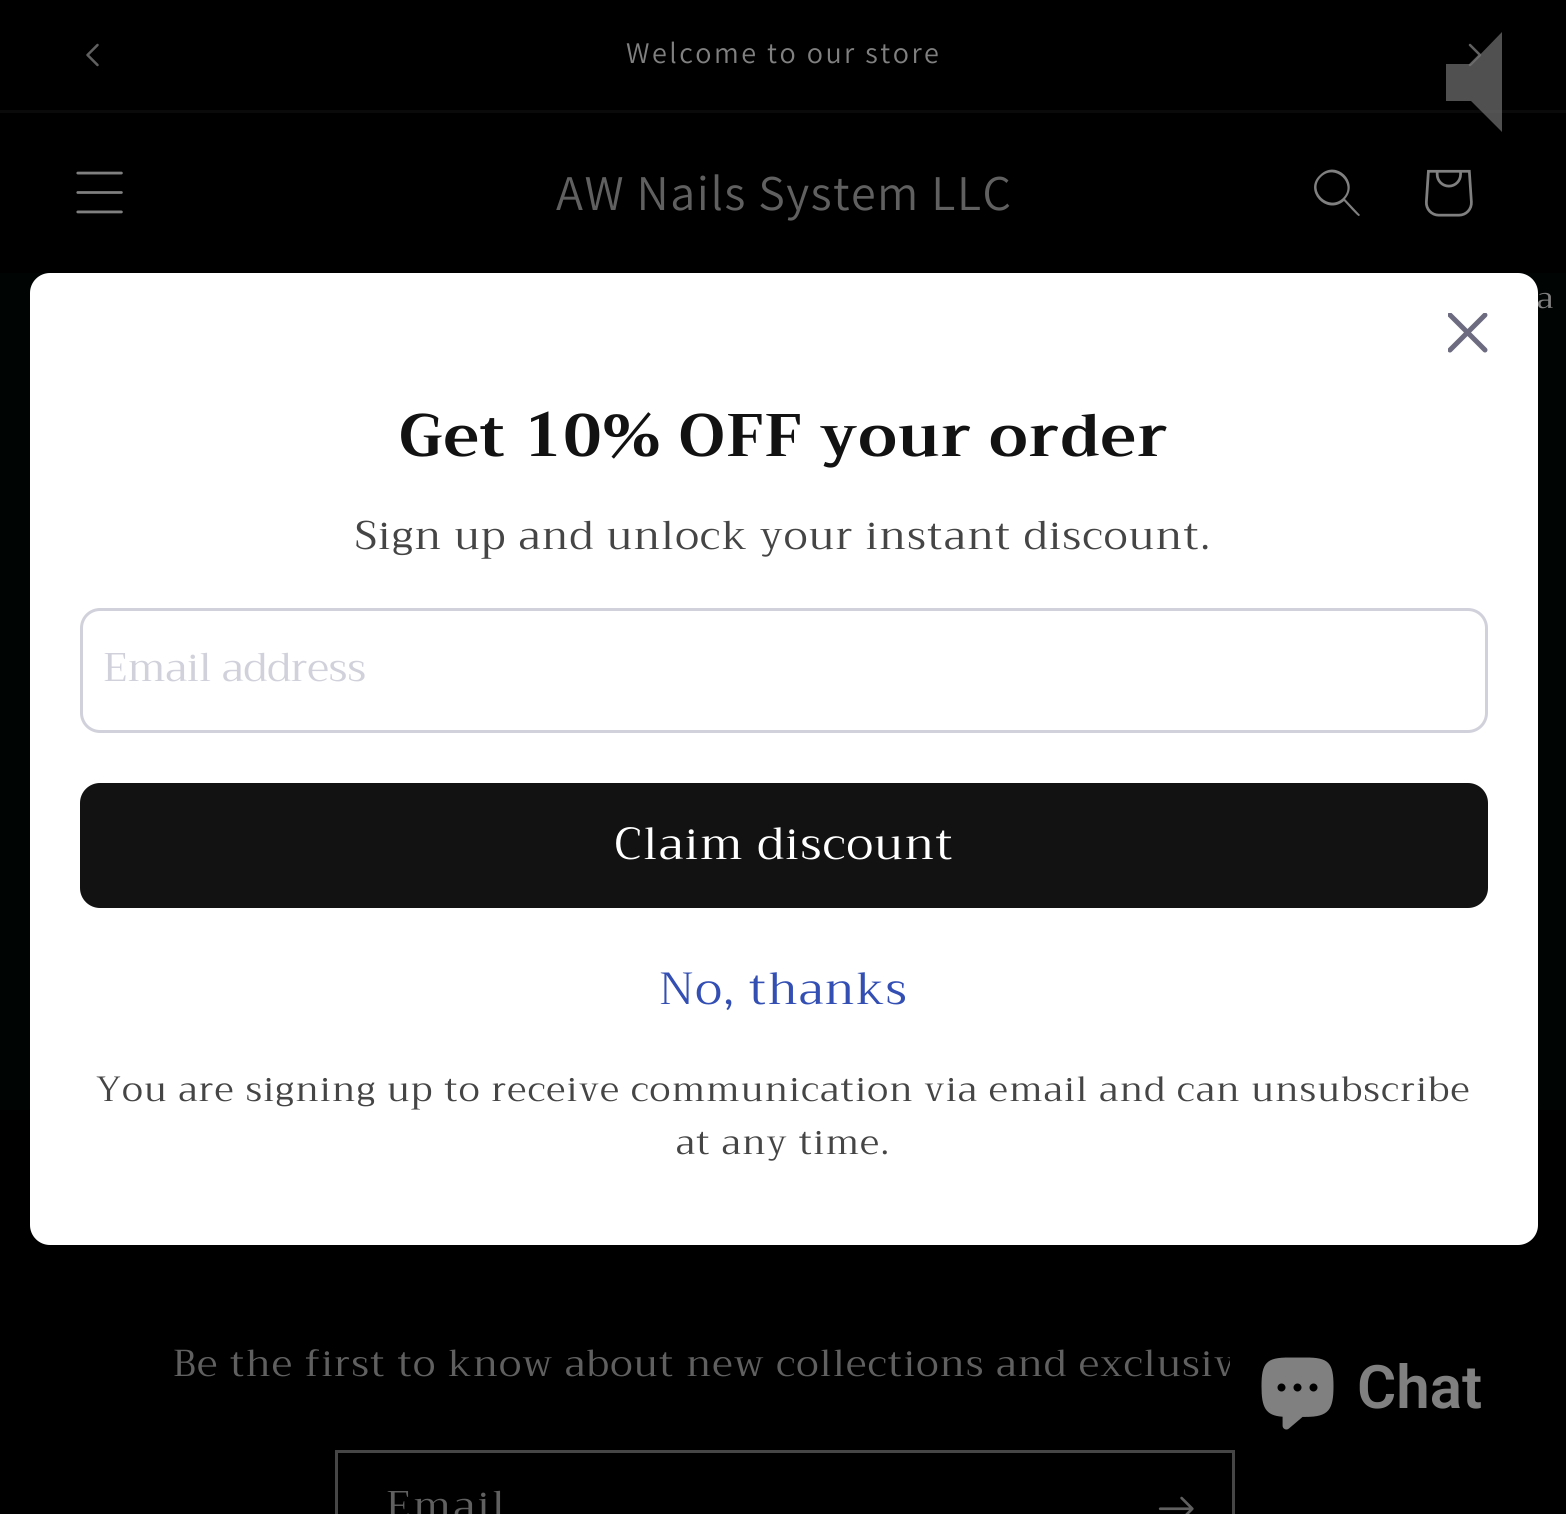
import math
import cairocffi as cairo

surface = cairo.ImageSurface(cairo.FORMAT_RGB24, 1566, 1514)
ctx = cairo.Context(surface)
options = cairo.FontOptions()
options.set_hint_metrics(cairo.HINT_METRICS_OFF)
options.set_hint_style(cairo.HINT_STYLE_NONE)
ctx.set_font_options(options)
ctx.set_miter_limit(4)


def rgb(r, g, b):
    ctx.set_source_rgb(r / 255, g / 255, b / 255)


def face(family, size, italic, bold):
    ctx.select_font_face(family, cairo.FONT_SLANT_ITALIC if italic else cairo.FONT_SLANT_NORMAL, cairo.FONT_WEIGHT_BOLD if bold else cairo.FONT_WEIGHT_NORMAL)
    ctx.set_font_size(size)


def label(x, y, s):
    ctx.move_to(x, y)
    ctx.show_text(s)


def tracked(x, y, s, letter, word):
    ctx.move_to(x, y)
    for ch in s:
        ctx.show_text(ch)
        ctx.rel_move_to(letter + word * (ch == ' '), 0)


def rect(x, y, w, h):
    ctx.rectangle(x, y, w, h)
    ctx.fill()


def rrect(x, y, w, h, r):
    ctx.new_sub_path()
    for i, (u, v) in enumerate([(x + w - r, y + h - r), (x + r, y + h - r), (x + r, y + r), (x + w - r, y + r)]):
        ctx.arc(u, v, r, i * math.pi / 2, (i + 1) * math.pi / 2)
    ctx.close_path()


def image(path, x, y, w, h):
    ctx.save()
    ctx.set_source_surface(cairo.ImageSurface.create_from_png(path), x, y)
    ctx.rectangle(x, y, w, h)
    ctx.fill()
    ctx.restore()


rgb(0, 5, 3)
ctx.paint()
rgb(0, 0, 0)
rect(0, 0, 1566, 110)
rgb(10, 10, 10)
rect(0, 110, 1566, 3)
image('image0.png', 86, 43, 13, 24)
face('Assistant', 30, 0, 0)
rgb(128, 128, 128)
tracked(626, 63, 'Welcome to our store', 2.5, 0)
image('image1.png', 1468, 43, 14, 24)
rgb(0, 0, 0)
rect(0, 113, 1566, 160)
ctx.set_source_rgba(0.451, 0.447, 0.447, 0.7)
ctx.new_path()
ctx.move_to(1446, 64)
ctx.line_to(1446, 101)
ctx.line_to(1471, 101)
ctx.line_to(1502, 132)
ctx.line_to(1502, 32)
ctx.line_to(1471, 64)
ctx.close_path()
ctx.fill()
image('image2.png', 76, 171, 47, 43)
face('Assistant', 50, 0, 0)
rgb(96, 96, 96)
tracked(556, 210, 'AW Nails System LLC', 1.5, 0)
rgb(128, 128, 128)
ctx.set_fill_rule(cairo.FILL_RULE_EVEN_ODD)
ctx.new_path()
ctx.move_to(1343, 198)
ctx.curve_to(1329, 212, 1307, 191, 1321, 177)
ctx.curve_to(1335, 163, 1357, 184, 1343, 198)
ctx.close_path()
ctx.move_to(1344, 201)
ctx.curve_to(1326, 216, 1303, 190, 1320, 175)
ctx.curve_to(1336, 159, 1360, 182, 1345, 199)
ctx.line_to(1360, 215)
ctx.line_to(1359, 216)
ctx.curve_to(1358, 217, 1346, 203, 1344, 201)
ctx.close_path()
ctx.fill()
image('image3.png', 1425, 169, 48, 48)
face('Trirong', 30, 0, 0)
tracked(1537, 308, 'a', 1.5, 0)
rgb(0, 0, 0)
rect(0, 1110, 1566, 404)
rgb(255, 255, 255)
rrect(30, 273, 1508, 972, 20)
ctx.fill()
image('image4.png', 1448, 313, 40, 40)
face('Trirong', 60, 0, 1)
rgb(18, 18, 18)
tracked(399, 456, 'Get 10% OFF your order', 1.5, 0)
face('Trirong', 40, 0, 0)
rgb(69, 69, 69)
tracked(355, 549, 'Sign up and unlock your instant discount.', 1.5, 0)
rrect(81.5, 609.5, 1405, 122, 18.5)
rgb(209, 209, 219)
ctx.set_line_width(3)
ctx.stroke()
label(103, 681, 'Email address')
rgb(18, 18, 18)
rrect(80, 783, 1408, 125, 20)
ctx.fill()
face('Trirong', 45, 0, 0)
rgb(255, 255, 255)
tracked(614, 859, 'Claim discount', 1.5, 0)
rgb(51, 79, 180)
tracked(659, 1004, 'No, thanks', 1.5, 0)
face('Trirong', 35, 0, 0)
rgb(69, 69, 69)
tracked(96, 1101, 'You are signing up to receive communication via email and can unsubscribe', 1.5, 0)
tracked(676, 1154, 'at any time.', 1.5, 0)
face('Trirong', 37.5, 0, 0)
rgb(96, 96, 96)
tracked(173, 1376, 'Be the first to know about new collections and exclusiv', 1.5, 0)
ctx.rectangle(336.5, 1451.5, 897, 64)
rgb(70, 70, 70)
ctx.stroke()
face('Trirong', 40, 0, 0)
rgb(96, 96, 96)
tracked(386, 1519, 'Email', 2.5, 0)
image('image5.png', 1158, 1496, 36, 18)
rgb(0, 0, 0)
rrect(1230, 1313, 283, 150, 40)
ctx.fill()
image('image6.png', 1261, 1357, 73, 73)
face('Roboto SemiBold', 60, 0, 0)
rgb(128, 128, 128)
label(1357, 1408, 'Chat')
surface.write_to_png('render.png')
